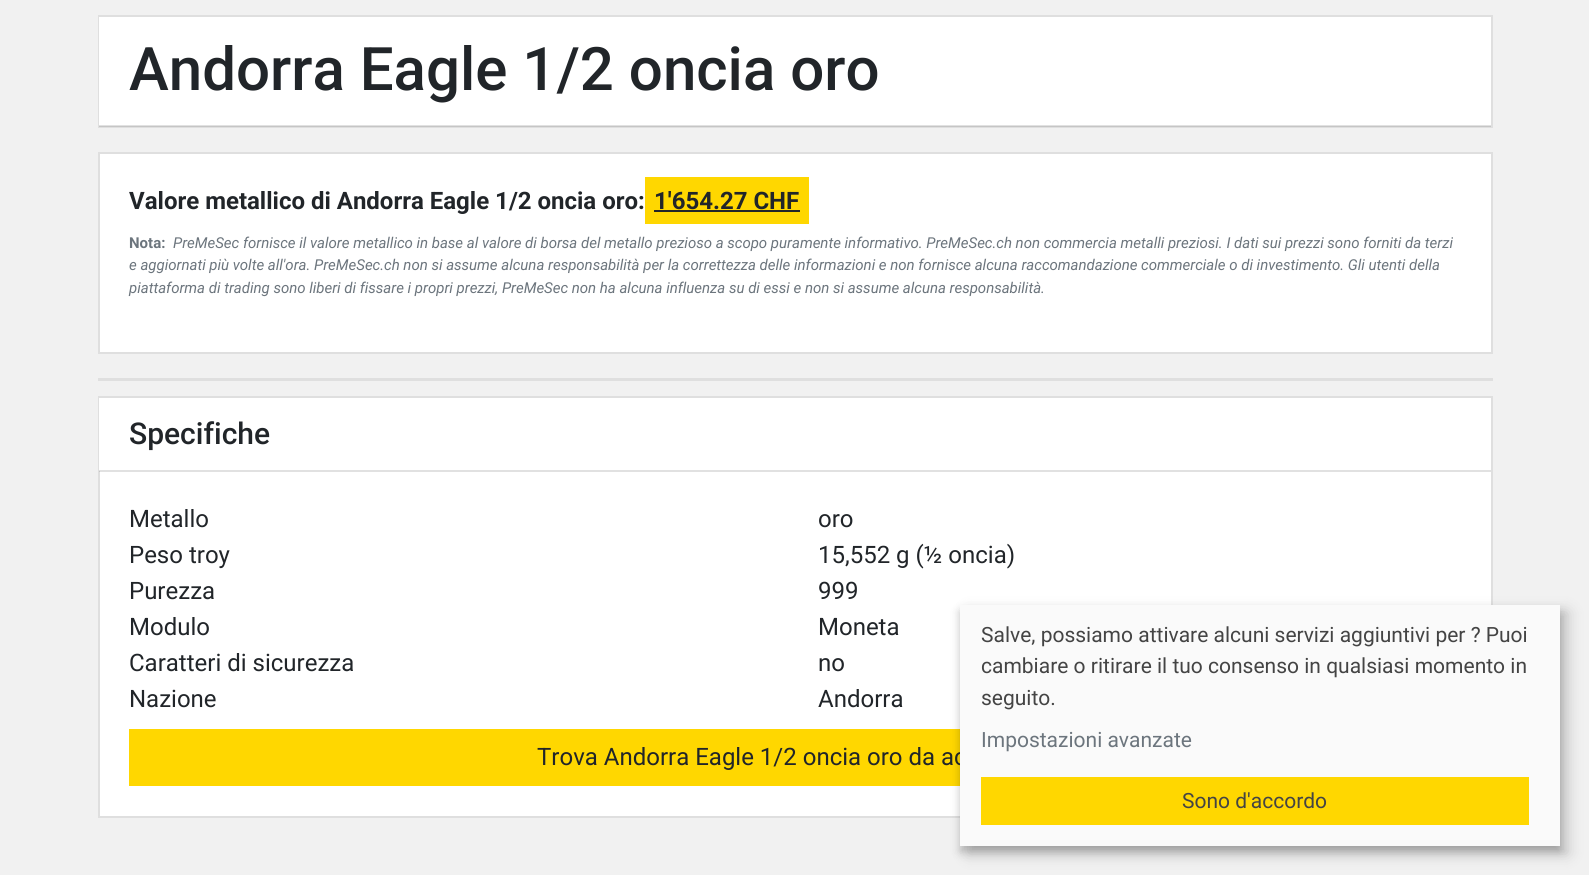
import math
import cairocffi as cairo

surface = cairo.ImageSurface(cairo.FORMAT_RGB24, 1589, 875)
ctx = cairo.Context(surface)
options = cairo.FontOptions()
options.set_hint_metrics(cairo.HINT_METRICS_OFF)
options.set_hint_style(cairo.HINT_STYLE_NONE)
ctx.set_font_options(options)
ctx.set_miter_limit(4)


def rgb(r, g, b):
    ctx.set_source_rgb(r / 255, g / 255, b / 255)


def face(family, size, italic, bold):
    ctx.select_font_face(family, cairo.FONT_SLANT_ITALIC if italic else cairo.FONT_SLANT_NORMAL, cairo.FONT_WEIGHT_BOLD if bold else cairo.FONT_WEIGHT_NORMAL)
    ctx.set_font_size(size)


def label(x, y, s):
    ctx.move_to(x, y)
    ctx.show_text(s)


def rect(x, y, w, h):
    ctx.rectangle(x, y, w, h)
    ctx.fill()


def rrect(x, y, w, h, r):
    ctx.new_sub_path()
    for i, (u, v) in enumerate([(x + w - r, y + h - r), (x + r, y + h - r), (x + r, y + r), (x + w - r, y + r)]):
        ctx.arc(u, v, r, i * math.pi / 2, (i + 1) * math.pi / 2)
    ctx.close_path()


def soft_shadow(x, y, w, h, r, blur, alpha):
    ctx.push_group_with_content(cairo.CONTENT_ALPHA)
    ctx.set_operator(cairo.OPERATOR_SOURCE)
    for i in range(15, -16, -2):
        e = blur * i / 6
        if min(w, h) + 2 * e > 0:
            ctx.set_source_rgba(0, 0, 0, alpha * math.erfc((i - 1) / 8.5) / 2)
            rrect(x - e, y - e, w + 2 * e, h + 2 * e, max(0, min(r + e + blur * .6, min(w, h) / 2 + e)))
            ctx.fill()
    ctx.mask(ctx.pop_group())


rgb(241, 241, 241)
ctx.paint()
ctx.rectangle(99, 16, 1393, 111)
rgb(223, 223, 223)
ctx.stroke()
rgb(255, 255, 255)
rect(99, 17, 1392, 109)
ctx.set_source_rgba(0, 0, 0, 0.12)
rect(99, 125, 1392, 2)
face('Roboto Medium', 60, 0, 0)
rgb(33, 37, 41)
label(129, 90, 'Andorra Eagle 1/2 oncia oro')
rgb(255, 255, 255)
ctx.rectangle(99, 153, 1393, 200)
ctx.fill_preserve()
rgb(223, 223, 223)
ctx.stroke()
face('Roboto', 24, 0, 1)
rgb(33, 37, 41)
label(129, 209, 'Valore metallico di Andorra Eagle 1/2 oncia oro:')
rgb(255, 215, 0)
rect(645, 177, 164, 47)
rgb(33, 37, 41)
label(654, 209, '1\'654.27 CHF')
rect(654, 210, 146, 2)
face('Roboto', 15, 0, 1)
rgb(108, 117, 125)
label(129, 248, 'Nota:')
face('Roboto', 15, 1, 0)
label(173, 248, 'PreMeSec fornisce il valore metallico in base al valore di borsa del metallo prezioso a scopo puramente informativo. PreMeSec.ch non commercia metalli preziosi. I dati sui prezzi sono forniti da terzi')
label(129, 270, 'e aggiornati più volte all\'ora. PreMeSec.ch non si assume alcuna responsabilità per la correttezza delle informazioni e non fornisce alcuna raccomandazione commerciale o di investimento. Gli utenti della')
label(129, 293, 'piattaforma di trading sono liberi di fissare i propri prezzi, PreMeSec non ha alcuna influenza su di essi e non si assume alcuna responsabilità.')
rgb(223, 223, 223)
rect(98, 378, 1395, 3)
rgb(255, 255, 255)
rect(100, 471, 1391, 345)
ctx.rectangle(99, 397, 1393, 420)
rgb(223, 223, 223)
ctx.stroke()
rgb(255, 255, 255)
rect(99, 398, 1392, 73)
ctx.set_source_rgba(0, 0, 0, 0.12)
rect(99, 470, 1392, 2)
face('Roboto Medium', 30, 0, 0)
rgb(33, 37, 41)
label(129, 444, 'Specifiche')
face('Roboto', 24, 0, 0)
label(129, 527, 'Metallo')
label(818, 527, 'oro')
label(129, 563, 'Peso troy')
label(818, 563, '15,552 g (½ oncia)')
label(129, 599, 'Purezza')
label(818, 599, '999')
label(129, 635, 'Modulo')
label(818, 635, 'Moneta')
label(129, 671, 'Caratteri di sicurezza')
label(818, 671, 'no')
label(129, 707, 'Nazione')
label(818, 707, 'Andorra')
rgb(255, 215, 0)
rect(129, 729, 831, 57)
rgb(33, 37, 41)
label(537, 765, 'Trova Andorra Eagle 1/2 oncia oro da ac')
rgb(0, 0, 0)
soft_shadow(968, 612, 600, 242, 0, 7.5, 0.19)
soft_shadow(960, 611, 600, 241, 0, 4.5, 0.2)
rgb(250, 250, 250)
rect(960, 605, 600, 241)
face('Roboto', 21, 0, 0)
rgb(68, 68, 68)
label(981, 642, 'Salve, possiamo attivare alcuni servizi aggiuntivi per ? Puoi')
label(981, 673, 'cambiare o ritirare il tuo consenso in qualsiasi momento in')
label(981, 705, 'seguito.')
rgb(108, 117, 125)
label(981, 747, 'Impostazioni avanzate')
rgb(255, 215, 0)
rect(981, 777, 548, 48)
rgb(68, 68, 68)
label(1182, 808, 'Sono d\'accordo')
surface.write_to_png('render.png')
